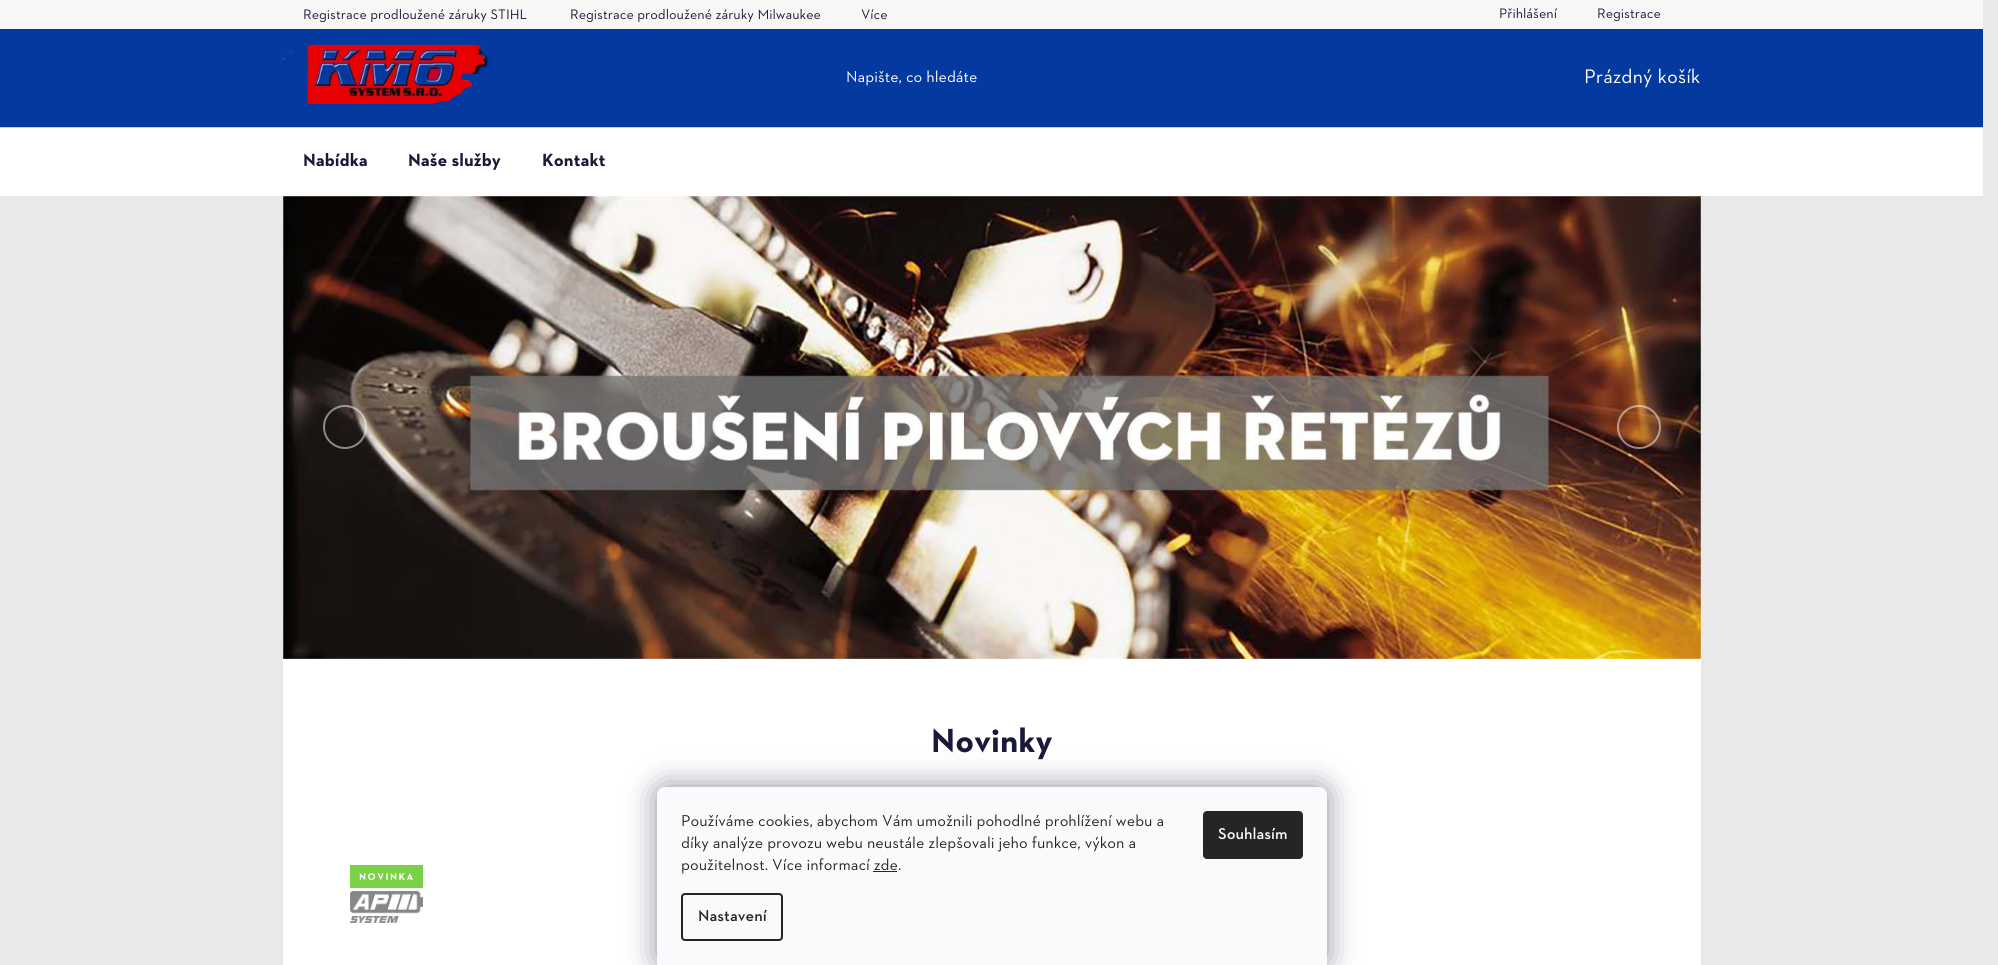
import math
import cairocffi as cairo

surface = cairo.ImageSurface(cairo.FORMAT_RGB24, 1998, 965)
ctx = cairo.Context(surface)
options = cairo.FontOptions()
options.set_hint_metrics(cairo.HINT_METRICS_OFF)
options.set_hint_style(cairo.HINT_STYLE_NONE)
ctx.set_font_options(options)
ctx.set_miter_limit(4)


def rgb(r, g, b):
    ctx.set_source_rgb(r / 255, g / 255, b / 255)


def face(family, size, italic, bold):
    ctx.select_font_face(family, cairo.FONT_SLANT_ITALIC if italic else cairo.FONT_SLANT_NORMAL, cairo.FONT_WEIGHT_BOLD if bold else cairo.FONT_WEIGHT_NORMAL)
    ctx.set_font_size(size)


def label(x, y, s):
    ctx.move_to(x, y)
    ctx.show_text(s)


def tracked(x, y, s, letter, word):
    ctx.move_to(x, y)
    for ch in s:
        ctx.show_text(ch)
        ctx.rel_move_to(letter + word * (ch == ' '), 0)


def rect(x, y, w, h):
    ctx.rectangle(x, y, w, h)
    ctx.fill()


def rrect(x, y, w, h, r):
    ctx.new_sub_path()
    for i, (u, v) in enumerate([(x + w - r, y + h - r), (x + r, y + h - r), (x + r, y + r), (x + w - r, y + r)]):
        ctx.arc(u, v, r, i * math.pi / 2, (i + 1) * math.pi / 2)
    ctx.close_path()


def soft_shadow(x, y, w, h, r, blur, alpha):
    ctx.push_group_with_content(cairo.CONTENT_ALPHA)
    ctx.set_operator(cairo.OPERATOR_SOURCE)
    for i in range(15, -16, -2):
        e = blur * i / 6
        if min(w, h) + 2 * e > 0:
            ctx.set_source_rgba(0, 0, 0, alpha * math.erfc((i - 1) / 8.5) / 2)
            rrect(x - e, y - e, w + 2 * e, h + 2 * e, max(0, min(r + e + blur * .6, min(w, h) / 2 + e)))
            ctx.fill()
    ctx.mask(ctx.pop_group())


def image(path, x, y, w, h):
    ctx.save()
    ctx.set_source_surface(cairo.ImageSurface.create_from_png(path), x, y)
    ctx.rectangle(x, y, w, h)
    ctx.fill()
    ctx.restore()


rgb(233, 233, 233)
ctx.paint()
rgb(247, 247, 247)
rect(0, 0, 1983, 29)
face('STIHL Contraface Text', 14, 0, 0)
rgb(26, 25, 55)
label(303, 19, 'Registrace prodloužené záruky STIHL')
label(570, 19, 'Registrace prodloužené záruky Milwaukee')
label(861, 19, 'Více')
label(1499, 18, 'Přihlášení')
label(1597, 18, 'Registrace')
rgb(4, 57, 159)
rect(0, 29, 1983, 98)
image('image0.png', 283, 44, 210, 60)
face('STIHL Contraface Text', 16, 0, 0)
rgb(255, 255, 255)
label(846, 82, 'Napište, co hledáte')
face('STIHL Contraface Text', 20, 0, 0)
label(1584, 83, 'Prázdný košík')
rect(0, 128, 1983, 68)
rgb(207, 207, 207)
rect(0, 127, 1983, 1)
face('STIHL Contraface Text', 18, 0, 1)
rgb(26, 25, 55)
label(303, 166, 'Nabídka')
label(408, 166, 'Naše služby')
label(542, 166, 'Kontakt')
rgb(255, 255, 255)
rect(283, 196, 1418, 769)
image('image1.png', 283, 196, 1418, 463)
ctx.arc(345, 427, 21, 0, 2 * math.pi)
ctx.set_source_rgba(1, 1, 1, 0.5)
ctx.stroke()
ctx.arc(1639, 427, 21, 0, 2 * math.pi)
ctx.stroke()
face('STIHL Contraface Text', 34, 0, 1)
rgb(26, 25, 55)
label(931, 752, 'Novinky')
rgb(122, 208, 70)
rect(350, 865, 73, 23)
face('STIHL Contraface Text', 10, 0, 1)
rgb(255, 255, 255)
tracked(359, 880, 'NOVINKA', 1.5, 0)
image('image2.png', 350, 891, 73, 32)
rgb(27, 25, 57)
soft_shadow(657, 787, 670, 178, 8, 15, 0.5)
rgb(248, 250, 251)
ctx.new_path()
ctx.move_to(665, 787)
ctx.line_to(1319, 787)
ctx.curve_to(1323.5, 787, 1327, 790.5, 1327, 795)
ctx.line_to(1327, 965)
ctx.line_to(657, 965)
ctx.line_to(657, 795)
ctx.curve_to(657, 790.5, 660.5, 787, 665, 787)
ctx.close_path()
ctx.fill()
face('STIHL Contraface Text', 16, 0, 0)
rgb(37, 37, 37)
label(681, 826, 'Používáme cookies, abychom Vám umožnili pohodlné prohlížení webu a')
label(681, 848, 'díky analýze provozu webu neustále zlepšovali jeho funkce, výkon a')
label(681, 870, 'použitelnost. Více informací zde.')
rect(873, 871, 24, 1)
rrect(682, 894, 100, 46, 3)
ctx.stroke()
face('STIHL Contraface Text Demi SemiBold', 16, 0, 0)
label(698, 921, 'Nastavení')
rrect(1203, 811, 100, 48, 4)
ctx.fill()
rgb(248, 250, 251)
label(1218, 839, 'Souhlasím')
surface.write_to_png('render.png')
